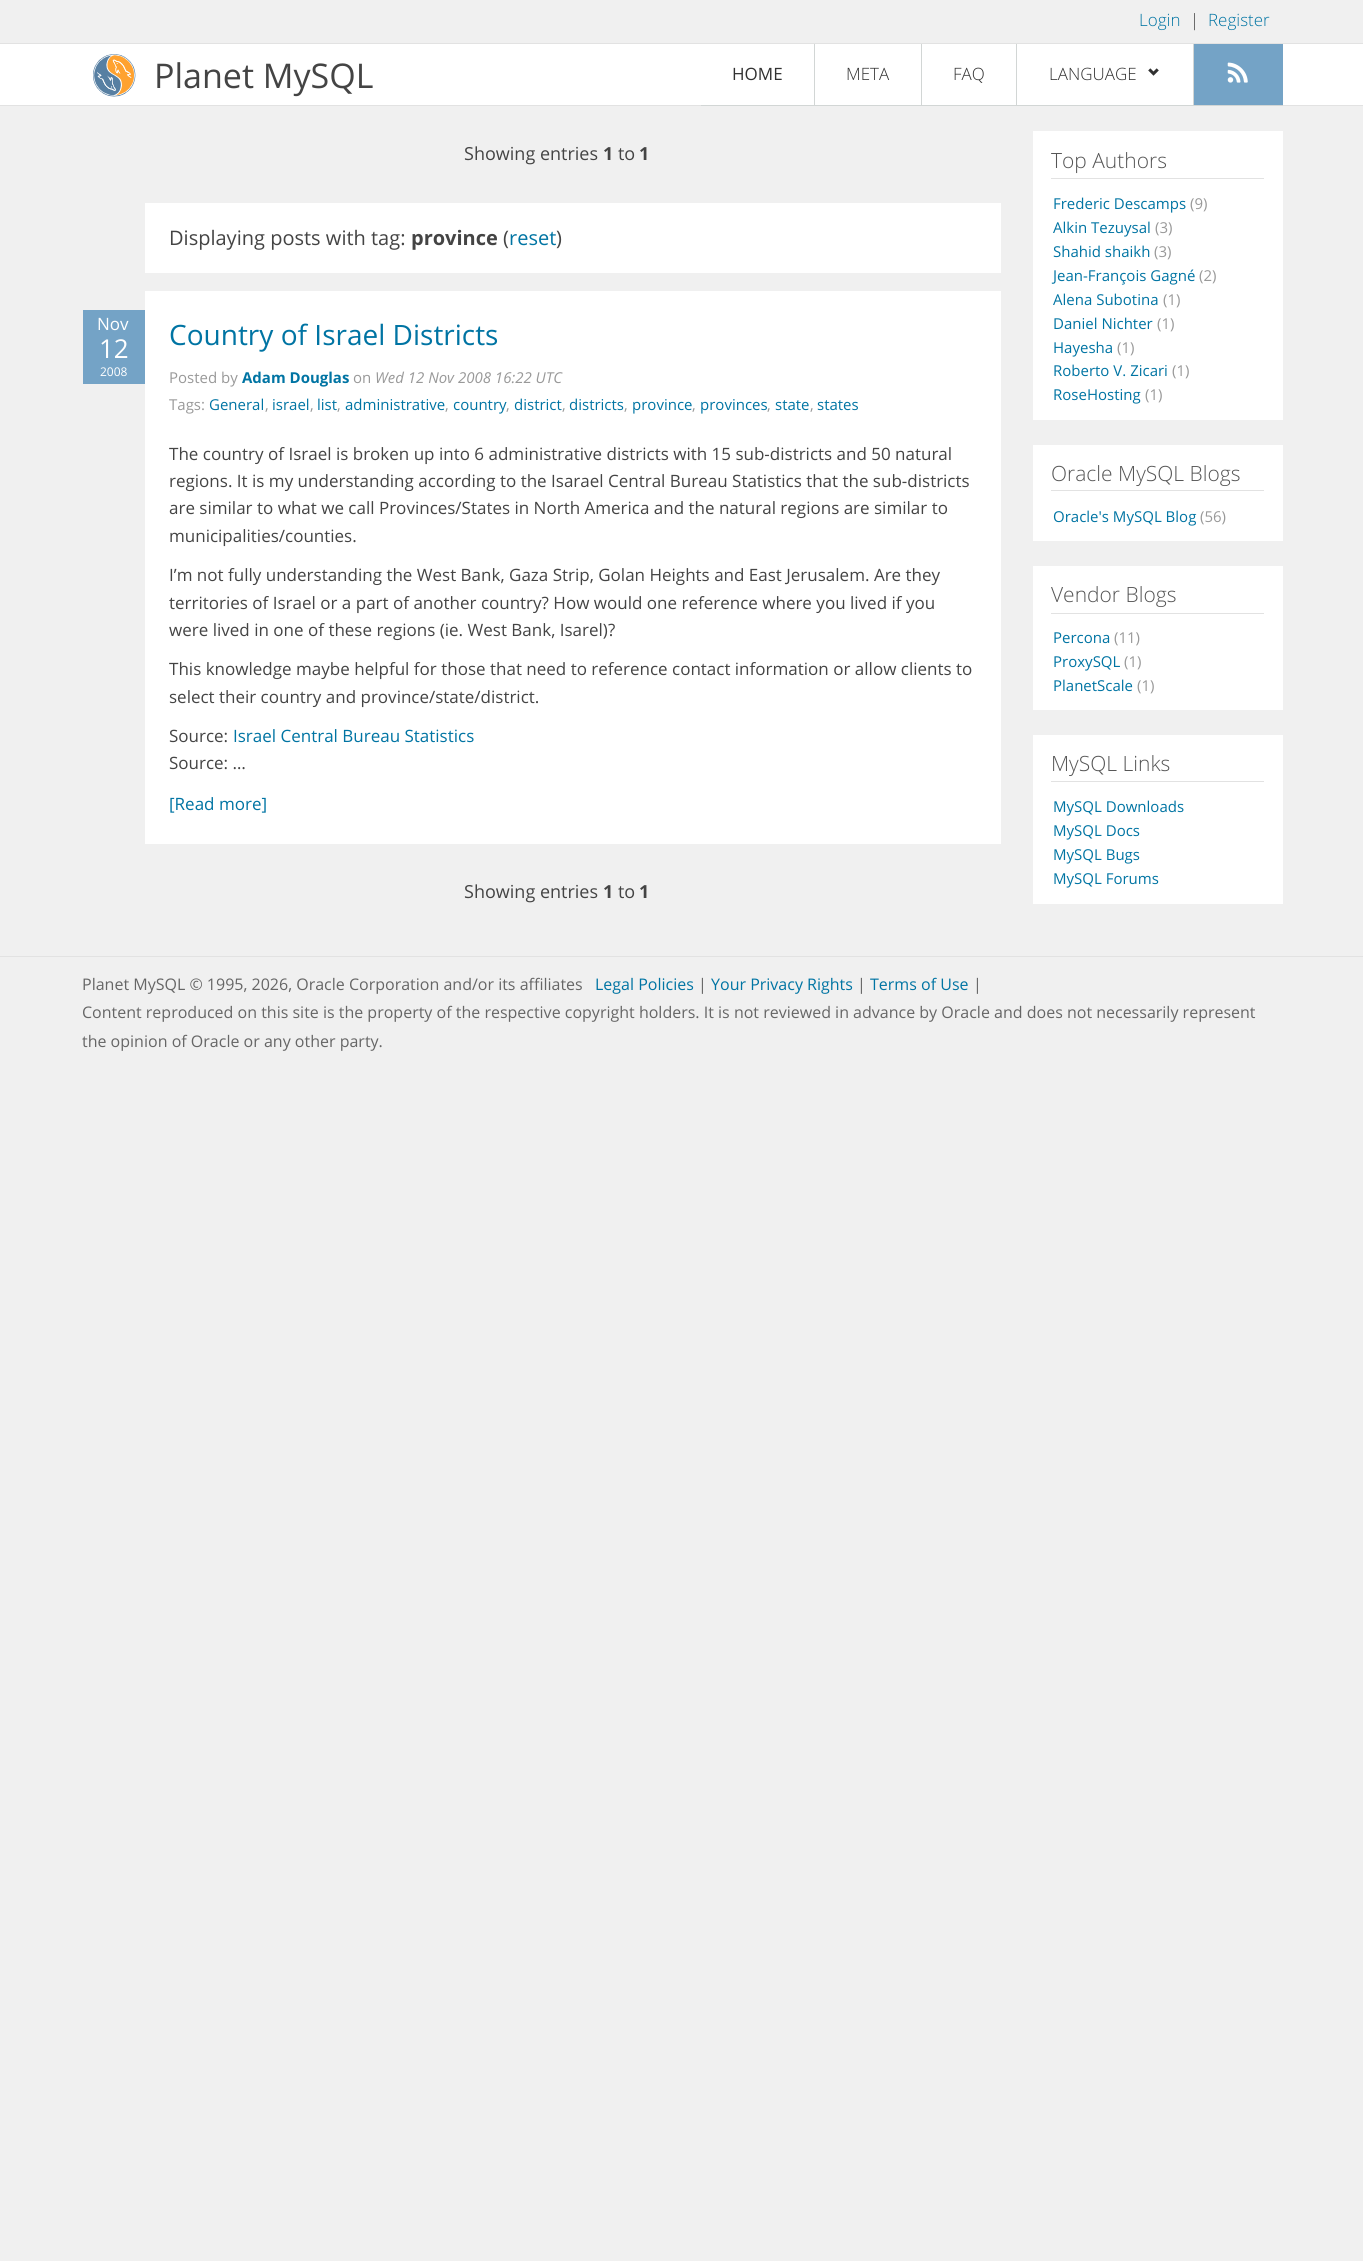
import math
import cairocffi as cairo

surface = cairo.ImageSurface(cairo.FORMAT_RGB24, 1363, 2261)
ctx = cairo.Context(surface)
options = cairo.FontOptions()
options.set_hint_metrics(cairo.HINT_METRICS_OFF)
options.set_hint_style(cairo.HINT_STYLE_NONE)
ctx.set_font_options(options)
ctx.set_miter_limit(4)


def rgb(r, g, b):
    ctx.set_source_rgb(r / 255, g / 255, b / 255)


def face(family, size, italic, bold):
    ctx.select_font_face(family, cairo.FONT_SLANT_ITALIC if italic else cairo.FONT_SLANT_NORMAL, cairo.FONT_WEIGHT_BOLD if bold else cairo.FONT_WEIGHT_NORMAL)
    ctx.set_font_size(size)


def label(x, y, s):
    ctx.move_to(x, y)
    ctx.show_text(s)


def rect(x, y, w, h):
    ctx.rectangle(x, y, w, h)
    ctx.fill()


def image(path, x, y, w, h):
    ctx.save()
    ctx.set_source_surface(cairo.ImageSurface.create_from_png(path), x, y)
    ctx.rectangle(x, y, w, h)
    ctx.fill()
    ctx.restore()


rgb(240, 240, 240)
ctx.paint()
rgb(226, 226, 226)
rect(0, 43, 1363, 1)
face('Open Sans Light', 17, 0, 0)
rgb(0, 116, 163)
label(1139, 26, 'Login')
rgb(68, 68, 68)
label(1190, 26, '|')
rgb(0, 116, 163)
label(1208, 26, 'Register')
rgb(255, 255, 255)
rect(0, 44, 1363, 61)
rgb(226, 226, 226)
rect(0, 105, 1363, 1)
image('image0.png', 93, 54, 43, 43)
face('Open Sans', 34, 0, 0)
rgb(68, 68, 68)
label(154, 88, 'Planet MySQL')
rgb(210, 214, 213)
rect(701, 105, 582, 1)
face('Open Sans', 17, 0, 0)
rgb(49, 49, 49)
label(732, 80, 'HOME')
rgb(210, 214, 213)
rect(814, 44, 1, 62)
face('Open Sans Light', 17, 0, 0)
rgb(49, 49, 49)
label(846, 80, 'META')
rgb(210, 214, 213)
rect(921, 44, 1, 62)
rgb(49, 49, 49)
label(953, 80, 'FAQ')
rgb(210, 214, 213)
rect(1016, 44, 1, 62)
rgb(49, 49, 49)
label(1049, 80, 'LANGUAGE')
image('image1.png', 1148, 68, 11, 8)
rgb(210, 214, 213)
rect(1193, 44, 1, 62)
rgb(116, 163, 198)
rect(1194, 44, 89, 61)
image('image2.png', 1227, 62, 21, 21)
face('Open Sans', 18, 0, 0)
rgb(68, 68, 68)
label(464, 160, 'Showing entries')
face('Open Sans', 18, 0, 1)
label(603, 160, '1')
face('Open Sans', 18, 0, 0)
label(618, 160, 'to')
face('Open Sans', 18, 0, 1)
label(639, 160, '1')
rgb(255, 255, 255)
rect(145, 203, 856, 70)
face('Open Sans', 20, 0, 0)
rgb(68, 68, 68)
label(169, 245, 'Displaying posts with tag:')
face('Open Sans', 20, 0, 1)
label(411, 245, 'province')
face('Open Sans', 20, 0, 0)
label(503, 245, '(')
rgb(0, 116, 163)
label(509, 245, 'reset')
rgb(68, 68, 68)
label(556, 245, ')')
rgb(255, 255, 255)
rect(145, 291, 856, 553)
rgb(116, 163, 198)
rect(83, 310, 62, 74)
face('Open Sans', 17, 0, 0)
rgb(255, 255, 255)
label(97, 330, 'Nov')
face('Open Sans', 26, 0, 0)
label(99, 358, '12')
face('Open Sans', 12, 0, 0)
label(100, 376, '2008')
face('Open Sans', 28, 0, 0)
rgb(0, 116, 163)
label(169, 345, 'Country of Israel Districts')
face('Open Sans', 15, 0, 0)
rgb(153, 153, 153)
label(169, 383, 'Posted by')
face('Open Sans', 15, 0, 1)
rgb(0, 116, 163)
label(242, 383, 'Adam Douglas')
face('Open Sans', 15, 0, 0)
rgb(153, 153, 153)
label(353, 383, 'on')
face('Open Sans', 15, 1, 0)
label(375, 383, 'Wed 12 Nov 2008 16:22 UTC')
face('Open Sans', 15, 0, 0)
label(169, 410, 'Tags:')
rgb(0, 116, 163)
label(209, 410, 'General')
rgb(153, 153, 153)
label(265, 410, ',')
rgb(0, 116, 163)
label(272, 410, 'israel')
rgb(153, 153, 153)
label(310, 410, ',')
rgb(0, 116, 163)
label(317, 410, 'list')
rgb(153, 153, 153)
label(337, 410, ',')
rgb(0, 116, 163)
label(345, 410, 'administrative')
rgb(153, 153, 153)
label(445, 410, ',')
rgb(0, 116, 163)
label(453, 410, 'country')
rgb(153, 153, 153)
label(506, 410, ',')
rgb(0, 116, 163)
label(514, 410, 'district')
rgb(153, 153, 153)
label(562, 410, ',')
rgb(0, 116, 163)
label(569, 410, 'districts')
rgb(153, 153, 153)
label(624, 410, ',')
rgb(0, 116, 163)
label(632, 410, 'province')
rgb(153, 153, 153)
label(692, 410, ',')
rgb(0, 116, 163)
label(700, 410, 'provinces')
rgb(153, 153, 153)
label(767, 410, ',')
rgb(0, 116, 163)
label(775, 410, 'state')
rgb(153, 153, 153)
label(810, 410, ',')
rgb(0, 116, 163)
label(817, 410, 'states')
face('Open Sans', 17, 0, 0)
rgb(68, 68, 68)
label(169, 460, 'The country of Israel is broken up into 6 administrative districts with 15 sub-districts and 50 natural')
label(169, 487, 'regions. It is my understanding according to the Isarael Central Bureau Statistics that the sub-districts')
label(169, 514, 'are similar to what we call Provinces/States in North America and the natural regions are similar to')
label(169, 542, 'municipalities/counties.')
label(169, 581, 'I’m not fully understanding the West Bank, Gaza Strip, Golan Heights and East Jerusalem. Are they')
label(169, 609, 'territories of Israel or a part of another country? How would one reference where you lived if you')
label(169, 636, 'were lived in one of these regions (ie. West Bank, Isarel)?')
label(169, 675, 'This knowledge maybe helpful for those that need to reference contact information or allow clients to')
label(169, 703, 'select their country and province/state/district.')
label(169, 742, 'Source:')
rgb(0, 116, 163)
label(233, 742, 'Israel Central Bureau Statistics')
rgb(68, 68, 68)
label(169, 769, 'Source: …')
rgb(0, 116, 163)
label(169, 810, '[Read more]')
face('Open Sans', 18, 0, 0)
rgb(68, 68, 68)
label(464, 898, 'Showing entries')
face('Open Sans', 18, 0, 1)
label(603, 898, '1')
face('Open Sans', 18, 0, 0)
label(618, 898, 'to')
face('Open Sans', 18, 0, 1)
label(639, 898, '1')
rgb(255, 255, 255)
rect(1033, 131, 250, 289)
rgb(226, 226, 226)
rect(1051, 178, 213, 1)
face('Open Sans Light', 21, 0, 0)
rgb(85, 85, 85)
label(1051, 168, 'Top Authors')
face('Open Sans', 15, 0, 0)
rgb(0, 116, 163)
label(1053, 209, 'Frederic Descamps')
rgb(153, 153, 153)
label(1190, 209, '(9)')
rgb(0, 116, 163)
label(1053, 233, 'Alkin Tezuysal')
rgb(153, 153, 153)
label(1155, 233, '(3)')
rgb(0, 116, 163)
label(1053, 257, 'Shahid shaikh')
rgb(153, 153, 153)
label(1154, 257, '(3)')
rgb(0, 116, 163)
label(1053, 281, 'Jean-François Gagné')
rgb(153, 153, 153)
label(1199, 281, '(2)')
rgb(0, 116, 163)
label(1053, 305, 'Alena Subotina')
rgb(153, 153, 153)
label(1163, 305, '(1)')
rgb(0, 116, 163)
label(1053, 329, 'Daniel Nichter')
rgb(153, 153, 153)
label(1157, 329, '(1)')
rgb(0, 116, 163)
label(1053, 353, 'Hayesha')
rgb(153, 153, 153)
label(1117, 353, '(1)')
rgb(0, 116, 163)
label(1053, 376, 'Roberto V. Zicari')
rgb(153, 153, 153)
label(1172, 376, '(1)')
rgb(0, 116, 163)
label(1053, 400, 'RoseHosting')
rgb(153, 153, 153)
label(1145, 400, '(1)')
rgb(255, 255, 255)
rect(1033, 445, 250, 96)
rgb(226, 226, 226)
rect(1051, 490, 213, 1)
face('Open Sans Light', 21, 0, 0)
rgb(85, 85, 85)
label(1051, 481, 'Oracle MySQL Blogs')
face('Open Sans', 15, 0, 0)
rgb(0, 116, 163)
label(1053, 522, 'Oracle\'s MySQL Blog')
rgb(153, 153, 153)
label(1200, 522, '(56)')
rgb(255, 255, 255)
rect(1033, 566, 250, 144)
rgb(226, 226, 226)
rect(1051, 613, 213, 1)
face('Open Sans Light', 21, 0, 0)
rgb(85, 85, 85)
label(1051, 602, 'Vendor Blogs')
face('Open Sans', 15, 0, 0)
rgb(0, 116, 163)
label(1053, 643, 'Percona')
rgb(153, 153, 153)
label(1114, 643, '(11)')
rgb(0, 116, 163)
label(1053, 667, 'ProxySQL')
rgb(153, 153, 153)
label(1124, 667, '(1)')
rgb(0, 116, 163)
label(1053, 691, 'PlanetScale')
rgb(153, 153, 153)
label(1137, 691, '(1)')
rgb(255, 255, 255)
rect(1033, 735, 250, 169)
rgb(226, 226, 226)
rect(1051, 781, 213, 1)
face('Open Sans Light', 21, 0, 0)
rgb(85, 85, 85)
label(1051, 771, 'MySQL Links')
face('Open Sans', 15, 0, 0)
rgb(0, 116, 163)
label(1053, 812, 'MySQL Downloads')
label(1053, 836, 'MySQL Docs')
label(1053, 860, 'MySQL Bugs')
label(1053, 884, 'MySQL Forums')
rgb(226, 226, 226)
rect(0, 956, 1363, 1)
face('Open Sans', 16, 0, 0)
rgb(102, 102, 102)
label(82, 990, 'Planet MySQL © 1995, 2026, Oracle Corporation and/or its affiliates')
rgb(0, 116, 163)
label(595, 990, 'Legal Policies')
rgb(102, 102, 102)
label(698, 990, '|')
rgb(0, 116, 163)
label(711, 990, 'Your Privacy Rights')
rgb(102, 102, 102)
label(857, 990, '|')
rgb(0, 116, 163)
label(870, 990, 'Terms of Use')
rgb(102, 102, 102)
label(973, 990, '|')
label(82, 1018, 'Content reproduced on this site is the property of the respective copyright holders. It is not reviewed in advance by Oracle and does not necessarily represent')
label(82, 1047, 'the opinion of Oracle or any other party.')
surface.write_to_png('render.png')
